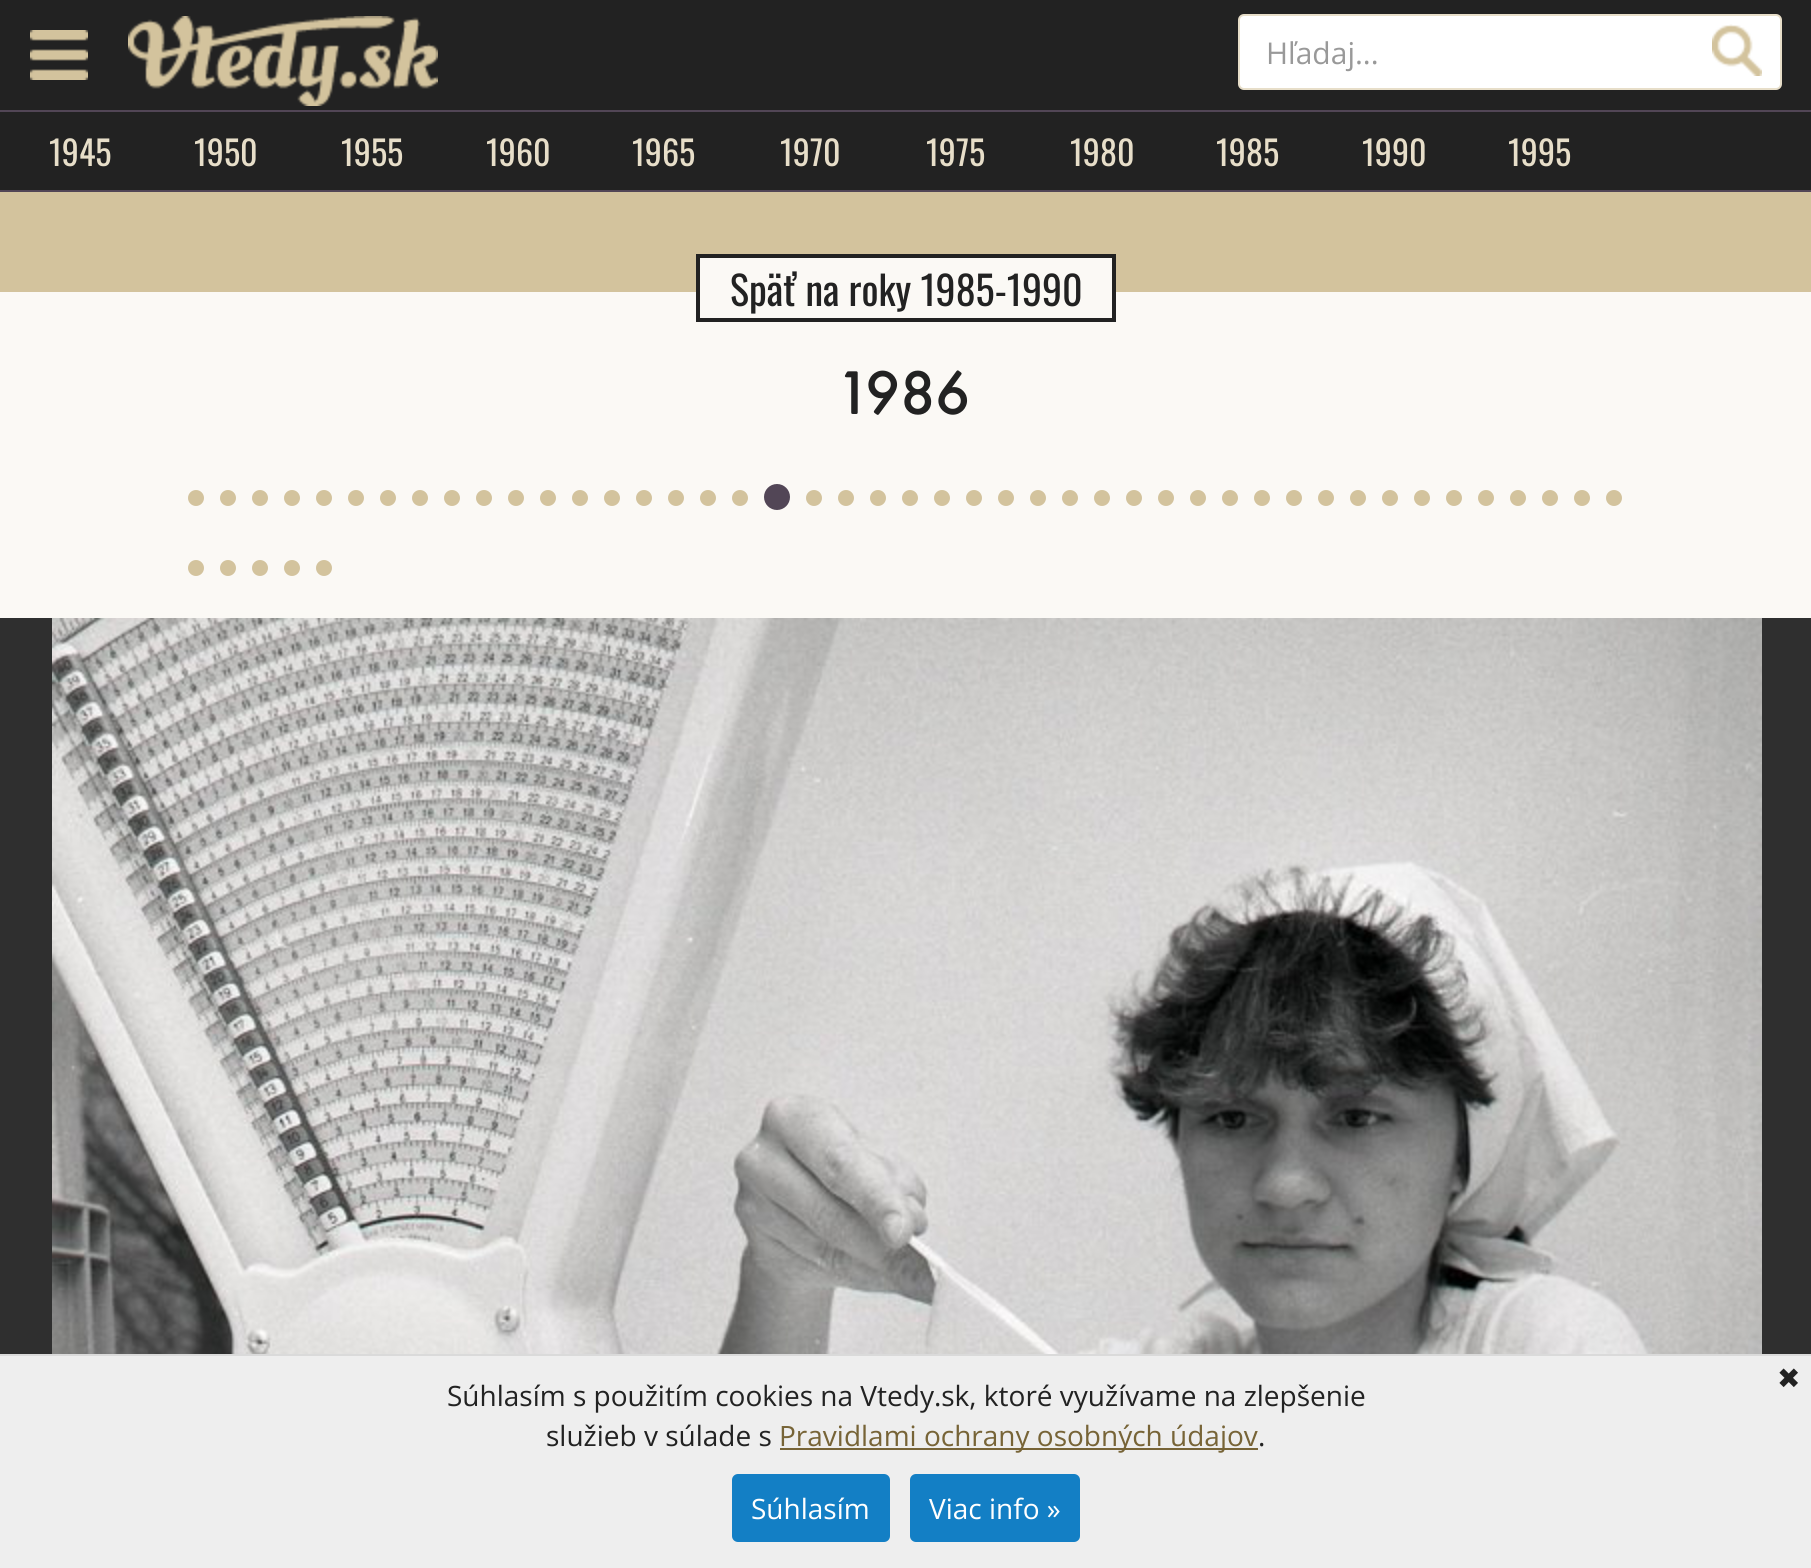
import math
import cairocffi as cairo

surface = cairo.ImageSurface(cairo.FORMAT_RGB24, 1811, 1568)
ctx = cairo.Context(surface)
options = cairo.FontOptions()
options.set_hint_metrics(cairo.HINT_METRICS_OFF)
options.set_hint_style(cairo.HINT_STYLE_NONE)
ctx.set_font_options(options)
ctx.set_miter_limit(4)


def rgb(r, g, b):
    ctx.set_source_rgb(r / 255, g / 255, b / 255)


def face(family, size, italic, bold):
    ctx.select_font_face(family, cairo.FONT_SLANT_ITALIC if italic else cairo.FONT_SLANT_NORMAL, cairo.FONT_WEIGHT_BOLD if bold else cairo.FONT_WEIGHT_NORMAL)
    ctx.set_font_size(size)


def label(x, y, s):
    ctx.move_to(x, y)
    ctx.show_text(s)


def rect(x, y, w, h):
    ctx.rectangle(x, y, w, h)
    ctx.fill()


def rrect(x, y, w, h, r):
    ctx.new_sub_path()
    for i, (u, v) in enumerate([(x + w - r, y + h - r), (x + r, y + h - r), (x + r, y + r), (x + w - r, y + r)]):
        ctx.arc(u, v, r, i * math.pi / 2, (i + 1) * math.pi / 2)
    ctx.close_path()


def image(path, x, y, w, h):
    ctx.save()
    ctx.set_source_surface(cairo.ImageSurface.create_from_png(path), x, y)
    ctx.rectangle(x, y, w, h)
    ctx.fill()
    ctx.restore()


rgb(211, 195, 157)
ctx.paint()
rgb(34, 34, 34)
rect(0, 0, 1811, 190)
rgb(82, 70, 86)
rect(0, 110, 1811, 2)
image('image0.png', 30, 30, 58, 50)
image('image1.png', 128, 16, 310, 90)
rgb(255, 255, 255)
rrect(1239, 15, 542, 74, 5)
ctx.fill_preserve()
rgb(231, 222, 201)
ctx.stroke()
face('Open Sans', 30, 0, 0)
rgb(153, 153, 153)
label(1266, 64, 'Hľadaj...')
image('image2.png', 1712, 24, 50, 52)
rgb(82, 70, 86)
rect(0, 190, 1811, 2)
face('Oswald', 34, 0, 0)
rgb(231, 222, 201)
label(49, 166, '1945')
label(194, 166, '1950')
label(341, 166, '1955')
label(486, 166, '1960')
label(632, 166, '1965')
label(780, 166, '1970')
label(926, 166, '1975')
label(1070, 166, '1980')
label(1216, 166, '1985')
label(1362, 166, '1990')
label(1508, 166, '1995')
rgb(251, 249, 245)
rect(0, 292, 1811, 326)
rect(700, 258, 412, 34)
ctx.rectangle(698, 256, 416, 64)
rgb(34, 34, 34)
ctx.set_line_width(4)
ctx.stroke()
face('Oswald', 40, 0, 0)
label(730, 306, 'Späť na roky 1985-1990')
face('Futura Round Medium', 64, 0, 0)
label(842, 414, '1986')
rgb(211, 195, 157)
ctx.new_path()
ctx.arc(196, 498, 8, 0, 2 * math.pi)
ctx.fill()
ctx.arc(228, 498, 8, 0, 2 * math.pi)
ctx.fill()
ctx.arc(260, 498, 8, 0, 2 * math.pi)
ctx.fill()
ctx.arc(292, 498, 8, 0, 2 * math.pi)
ctx.fill()
ctx.arc(324, 498, 8, 0, 2 * math.pi)
ctx.fill()
ctx.arc(356, 498, 8, 0, 2 * math.pi)
ctx.fill()
ctx.arc(388, 498, 8, 0, 2 * math.pi)
ctx.fill()
ctx.arc(420, 498, 8, 0, 2 * math.pi)
ctx.fill()
ctx.arc(452, 498, 8, 0, 2 * math.pi)
ctx.fill()
ctx.arc(484, 498, 8, 0, 2 * math.pi)
ctx.fill()
ctx.arc(516, 498, 8, 0, 2 * math.pi)
ctx.fill()
ctx.arc(548, 498, 8, 0, 2 * math.pi)
ctx.fill()
ctx.arc(580, 498, 8, 0, 2 * math.pi)
ctx.fill()
ctx.arc(612, 498, 8, 0, 2 * math.pi)
ctx.fill()
ctx.arc(644, 498, 8, 0, 2 * math.pi)
ctx.fill()
ctx.arc(676, 498, 8, 0, 2 * math.pi)
ctx.fill()
ctx.arc(708, 498, 8, 0, 2 * math.pi)
ctx.fill()
ctx.arc(740, 498, 8, 0, 2 * math.pi)
ctx.fill()
rgb(82, 70, 86)
ctx.arc(777, 497, 13, 0, 2 * math.pi)
ctx.fill()
rgb(211, 195, 157)
ctx.arc(814, 498, 8, 0, 2 * math.pi)
ctx.fill()
ctx.arc(846, 498, 8, 0, 2 * math.pi)
ctx.fill()
ctx.arc(878, 498, 8, 0, 2 * math.pi)
ctx.fill()
ctx.arc(910, 498, 8, 0, 2 * math.pi)
ctx.fill()
ctx.arc(942, 498, 8, 0, 2 * math.pi)
ctx.fill()
ctx.arc(974, 498, 8, 0, 2 * math.pi)
ctx.fill()
ctx.arc(1006, 498, 8, 0, 2 * math.pi)
ctx.fill()
ctx.arc(1038, 498, 8, 0, 2 * math.pi)
ctx.fill()
ctx.arc(1070, 498, 8, 0, 2 * math.pi)
ctx.fill()
ctx.arc(1102, 498, 8, 0, 2 * math.pi)
ctx.fill()
ctx.arc(1134, 498, 8, 0, 2 * math.pi)
ctx.fill()
ctx.arc(1166, 498, 8, 0, 2 * math.pi)
ctx.fill()
ctx.arc(1198, 498, 8, 0, 2 * math.pi)
ctx.fill()
ctx.arc(1230, 498, 8, 0, 2 * math.pi)
ctx.fill()
ctx.arc(1262, 498, 8, 0, 2 * math.pi)
ctx.fill()
ctx.arc(1294, 498, 8, 0, 2 * math.pi)
ctx.fill()
ctx.arc(1326, 498, 8, 0, 2 * math.pi)
ctx.fill()
ctx.arc(1358, 498, 8, 0, 2 * math.pi)
ctx.fill()
ctx.arc(1390, 498, 8, 0, 2 * math.pi)
ctx.fill()
ctx.arc(1422, 498, 8, 0, 2 * math.pi)
ctx.fill()
ctx.arc(1454, 498, 8, 0, 2 * math.pi)
ctx.fill()
ctx.arc(1486, 498, 8, 0, 2 * math.pi)
ctx.fill()
ctx.arc(1518, 498, 8, 0, 2 * math.pi)
ctx.fill()
ctx.arc(1550, 498, 8, 0, 2 * math.pi)
ctx.fill()
ctx.arc(1582, 498, 8, 0, 2 * math.pi)
ctx.fill()
ctx.arc(1614, 498, 8, 0, 2 * math.pi)
ctx.fill()
ctx.arc(196, 568, 8, 0, 2 * math.pi)
ctx.fill()
ctx.arc(228, 568, 8, 0, 2 * math.pi)
ctx.fill()
ctx.arc(260, 568, 8, 0, 2 * math.pi)
ctx.fill()
ctx.arc(292, 568, 8, 0, 2 * math.pi)
ctx.fill()
ctx.arc(324, 568, 8, 0, 2 * math.pi)
ctx.fill()
rgb(47, 47, 47)
rect(0, 618, 1811, 736)
image('image3.png', 52, 618, 1710, 736)
rgb(238, 238, 238)
rect(0, 1356, 1811, 212)
rgb(218, 218, 218)
rect(0, 1354, 1811, 2)
face('DejaVu Sans', 28, 0, 0)
rgb(34, 34, 34)
label(1777, 1388, '✖')
face('Open Sans', 28, 0, 0)
label(447, 1406, 'Súhlasím s použitím cookies na Vtedy.sk, ktoré využívame na zlepšenie')
label(546, 1446, 'služieb v súlade s')
rgb(119, 100, 55)
rect(780, 1448, 478, 2)
label(779, 1446, 'Pravidlami ochrany osobných údajov')
rgb(34, 34, 34)
label(1258, 1446, '.')
rgb(19, 127, 197)
rrect(732, 1474, 158, 68, 6)
ctx.fill()
rgb(255, 255, 255)
label(751, 1519, 'Súhlasím')
rgb(19, 127, 197)
rrect(910, 1474, 170, 68, 6)
ctx.fill()
rgb(255, 255, 255)
label(929, 1519, 'Viac info »')
surface.write_to_png('render.png')
